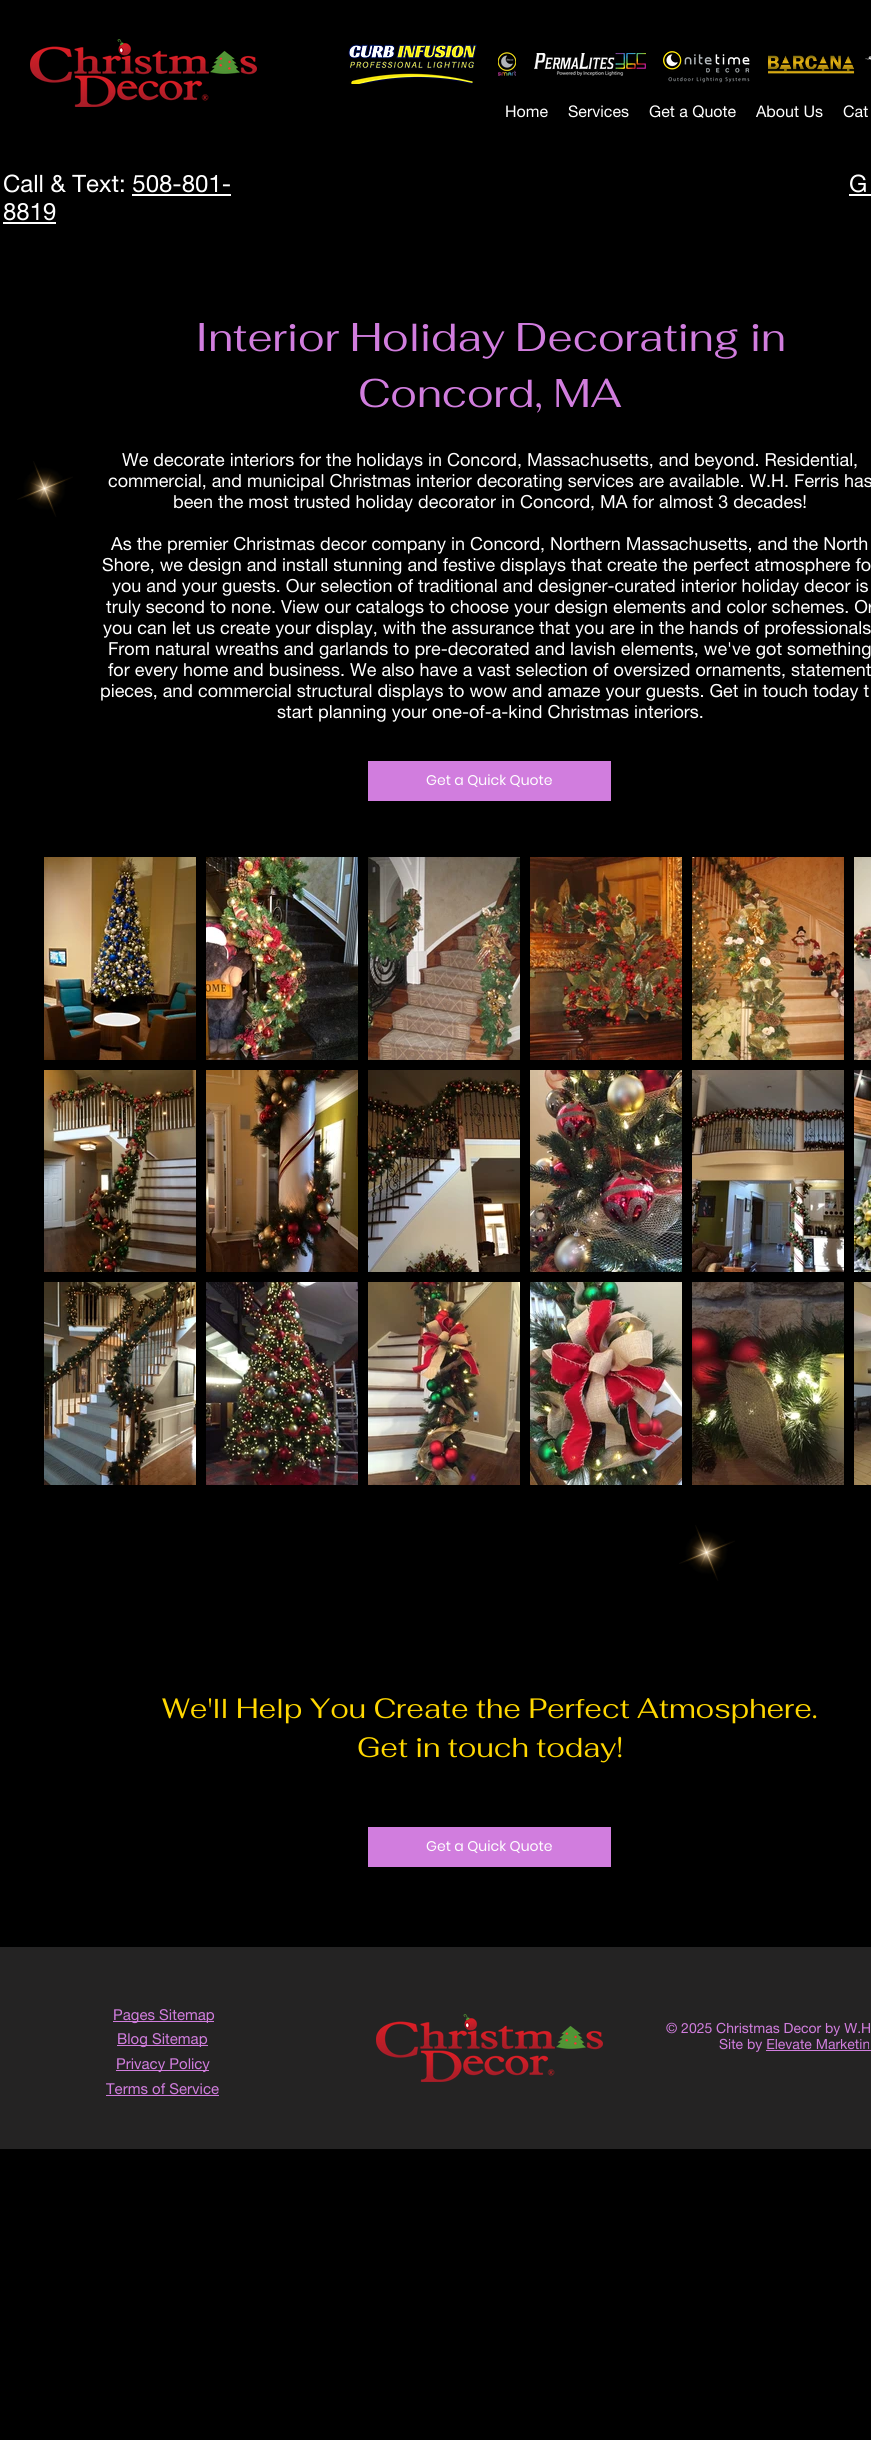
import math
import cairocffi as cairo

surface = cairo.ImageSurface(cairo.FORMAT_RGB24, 871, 2440)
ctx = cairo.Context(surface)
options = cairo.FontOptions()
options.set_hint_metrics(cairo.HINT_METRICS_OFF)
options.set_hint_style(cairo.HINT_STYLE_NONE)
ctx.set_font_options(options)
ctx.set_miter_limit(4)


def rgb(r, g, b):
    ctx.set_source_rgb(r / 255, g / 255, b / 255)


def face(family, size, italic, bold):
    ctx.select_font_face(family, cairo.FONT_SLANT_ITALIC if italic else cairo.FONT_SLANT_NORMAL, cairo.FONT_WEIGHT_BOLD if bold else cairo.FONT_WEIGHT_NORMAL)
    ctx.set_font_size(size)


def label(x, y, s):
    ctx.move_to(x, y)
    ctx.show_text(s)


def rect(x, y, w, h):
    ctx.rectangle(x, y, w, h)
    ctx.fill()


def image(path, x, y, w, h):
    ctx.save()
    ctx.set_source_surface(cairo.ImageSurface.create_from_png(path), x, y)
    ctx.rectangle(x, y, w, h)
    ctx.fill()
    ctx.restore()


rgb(0, 0, 0)
ctx.paint()
image('image0.png', 30, 39, 227, 68)
image('image1.png', 348, 44, 129, 40)
image('image2.png', 498, 52, 18, 24)
image('image3.png', 534, 53, 112, 23)
image('image4.png', 663, 51, 87, 32)
image('image5.png', 768, 55, 87, 19)
image('image6.png', 865, 56, 6, 4)
face('helvetica neue', 16, 0, 0)
rgb(255, 255, 255)
label(505, 117, 'Home')
label(568, 117, 'Services')
label(649, 117, 'Get a Quote')
label(756, 117, 'About Us')
label(843, 117, 'Cat')
face('helvetica neue', 24, 0, 0)
label(3, 192, 'Call & Text: 508-801-')
rect(132, 194, 99, 2)
label(3, 220, '8819')
rect(3, 222, 53, 2)
label(849, 192, 'G')
rect(849, 194, 22, 2)
face('Fahkwang', 40, 0, 0)
rgb(209, 125, 222)
label(195, 351, 'Interior Holiday Decorating in')
label(358, 407, 'Concord, MA')
image('image7.png', 17, 461, 56, 56)
face('helvetica neue', 18, 0, 0)
rgb(255, 255, 255)
label(122, 466, 'We decorate interiors for the holidays in Concord, Massachusetts, and beyond. Residential,')
label(108, 487, 'commercial, and municipal Christmas interior decorating services are available. W.H. Ferris has')
label(173, 508, 'been the most trusted holiday decorator in Concord, MA for almost 3 decades!')
label(111, 550, 'As the premier Christmas decor company in Concord, Northern Massachusetts, and the North')
label(102, 571, 'Shore, we design and install stunning and festive displays that create the perfect atmosphere fo')
label(112, 592, 'you and your guests. Our selection of traditional and designer-curated interior holiday decor is')
label(106, 613, 'truly second to none. View our catalogs to choose your design elements and color schemes. Or')
label(103, 634, 'you can let us create your display, with the assurance that you are in the hands of professionals')
label(108, 655, 'From natural wreaths and garlands to pre-decorated and lavish elements, we\'ve got something')
label(108, 676, 'for every home and business. We also have a vast selection of oversized ornaments, statement')
label(100, 697, 'pieces, and commercial structural displays to wow and amaze your guests. Get in touch today t')
label(277, 718, 'start planning your one-of-a-kind Christmas interiors.')
rgb(209, 125, 222)
rect(368, 761, 243, 40)
face('Poppins', 14, 0, 0)
rgb(255, 255, 255)
label(426, 785, 'Get a Quick Quote')
image('image8.png', 44, 857, 152, 203)
image('image9.png', 206, 857, 152, 203)
image('image10.png', 368, 857, 152, 203)
image('image11.png', 530, 857, 152, 203)
image('image12.png', 692, 857, 152, 203)
image('image13.png', 854, 857, 17, 203)
image('image14.png', 44, 1070, 152, 202)
image('image15.png', 206, 1070, 152, 202)
image('image16.png', 368, 1070, 152, 202)
image('image17.png', 530, 1070, 152, 202)
image('image18.png', 692, 1070, 152, 202)
image('image19.png', 854, 1070, 17, 202)
image('image20.png', 44, 1282, 152, 203)
image('image21.png', 206, 1282, 152, 203)
image('image22.png', 368, 1282, 152, 203)
image('image23.png', 530, 1282, 152, 203)
image('image24.png', 692, 1282, 152, 203)
image('image25.png', 854, 1282, 17, 203)
image('image26.png', 679, 1525, 56, 56)
face('Fahkwang', 28, 0, 0)
rgb(255, 215, 0)
label(162, 1718, 'We\'ll Help You Create the Perfect Atmosphere.')
label(357, 1757, 'Get in touch today!')
rgb(209, 125, 222)
rect(368, 1827, 243, 40)
face('Poppins', 14, 0, 0)
rgb(255, 255, 255)
label(426, 1851, 'Get a Quick Quote')
rgb(36, 35, 35)
rect(0, 1947, 871, 202)
rgb(209, 125, 222)
rect(113, 2021, 101, 1)
face('helvetica neue', 15, 0, 0)
label(113, 2020, 'Pages Sitemap')
rect(117, 2045, 91, 1)
label(117, 2044, 'Blog Sitemap')
rect(116, 2070, 93, 1)
label(116, 2069, 'Privacy Policy')
label(106, 2094, 'Terms of Service')
rect(106, 2095, 113, 1)
image('image27.png', 376, 2014, 227, 68)
face('helvetica neue', 14, 0, 0)
label(666, 2033, '© 2025 Christmas Decor by W.H')
label(719, 2049, 'Site by Elevate Marketin')
rect(766, 2050, 105, 1)
surface.write_to_png('render.png')
